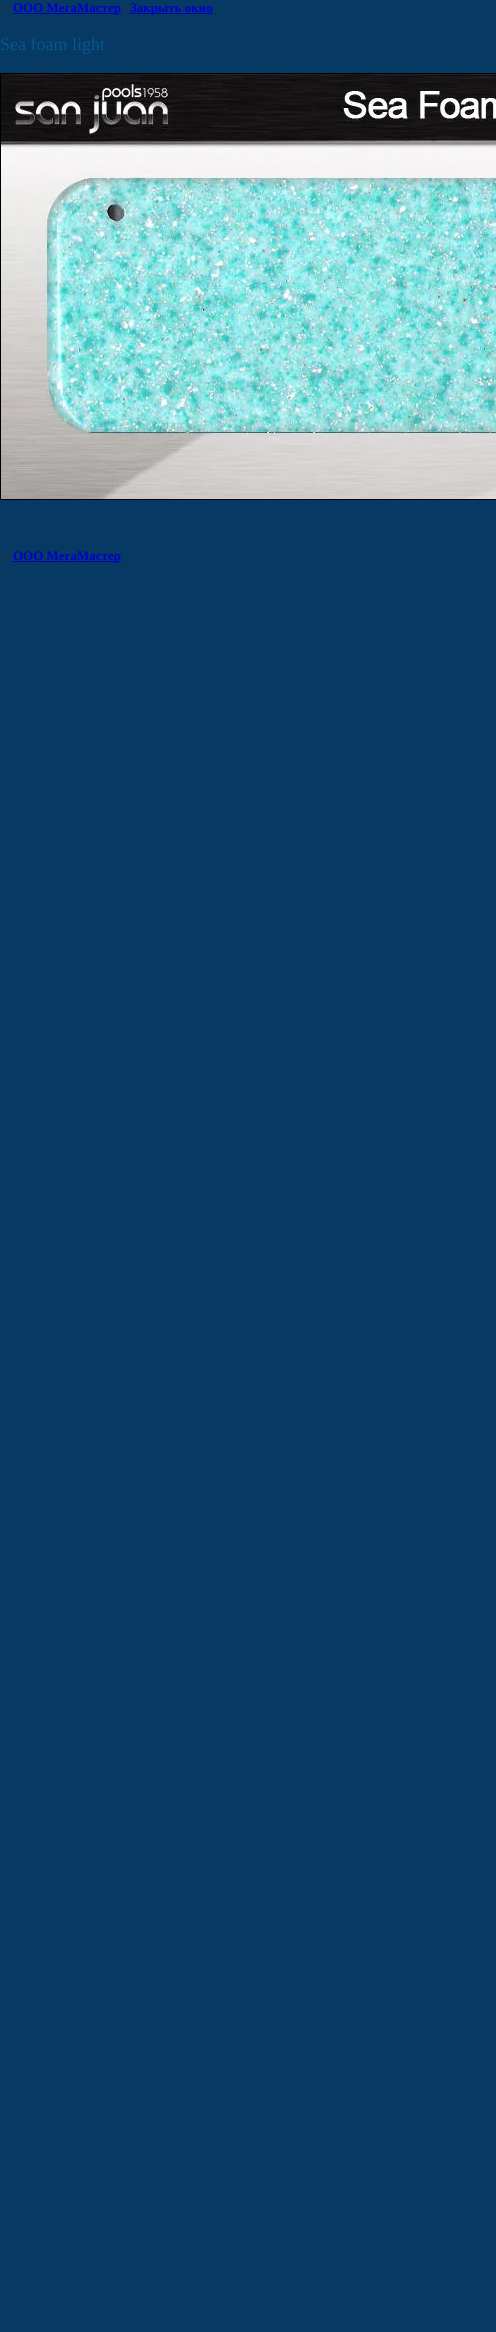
import math
import cairocffi as cairo

surface = cairo.ImageSurface(cairo.FORMAT_RGB24, 496, 2332)
ctx = cairo.Context(surface)
options = cairo.FontOptions()
options.set_hint_metrics(cairo.HINT_METRICS_OFF)
options.set_hint_style(cairo.HINT_STYLE_NONE)
ctx.set_font_options(options)
ctx.set_miter_limit(4)


def rgb(r, g, b):
    ctx.set_source_rgb(r / 255, g / 255, b / 255)


def face(family, size, italic, bold):
    ctx.select_font_face(family, cairo.FONT_SLANT_ITALIC if italic else cairo.FONT_SLANT_NORMAL, cairo.FONT_WEIGHT_BOLD if bold else cairo.FONT_WEIGHT_NORMAL)
    ctx.set_font_size(size)


def label(x, y, s):
    ctx.move_to(x, y)
    ctx.show_text(s)


def rect(x, y, w, h):
    ctx.rectangle(x, y, w, h)
    ctx.fill()


def image(path, x, y, w, h):
    ctx.save()
    ctx.set_source_surface(cairo.ImageSurface.create_from_png(path), x, y)
    ctx.rectangle(x, y, w, h)
    ctx.fill()
    ctx.restore()


rgb(7, 57, 101)
ctx.paint()
face('Liberation Serif', 13, 0, 0)
rgb(51, 51, 51)
label(0, 12, '©')
rgb(0, 0, 204)
rect(13, 13, 108, 1)
face('Liberation Serif', 13, 0, 1)
label(13, 12, 'ООО МегаМастер')
face('Liberation Serif', 13, 0, 0)
rgb(51, 51, 51)
label(124, 12, '|')
rgb(0, 0, 204)
rect(130, 13, 83, 1)
face('Liberation Serif', 13, 0, 1)
label(130, 12, 'Закрыть окно')
face('Liberation Serif', 18, 0, 0)
rgb(6, 87, 143)
label(0, 50, 'Sea foam light')
ctx.rectangle(0.5, 73.5, 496, 426)
rgb(0, 0, 0)
ctx.set_line_width(1)
ctx.stroke()
image('image0.png', 1, 74, 495, 425)
face('Liberation Serif', 13, 0, 0)
rgb(51, 51, 51)
label(0, 560, '©')
rgb(0, 0, 204)
rect(13, 561, 108, 1)
face('Liberation Serif', 13, 0, 1)
label(13, 560, 'ООО МегаМастер')
surface.write_to_png('render.png')
